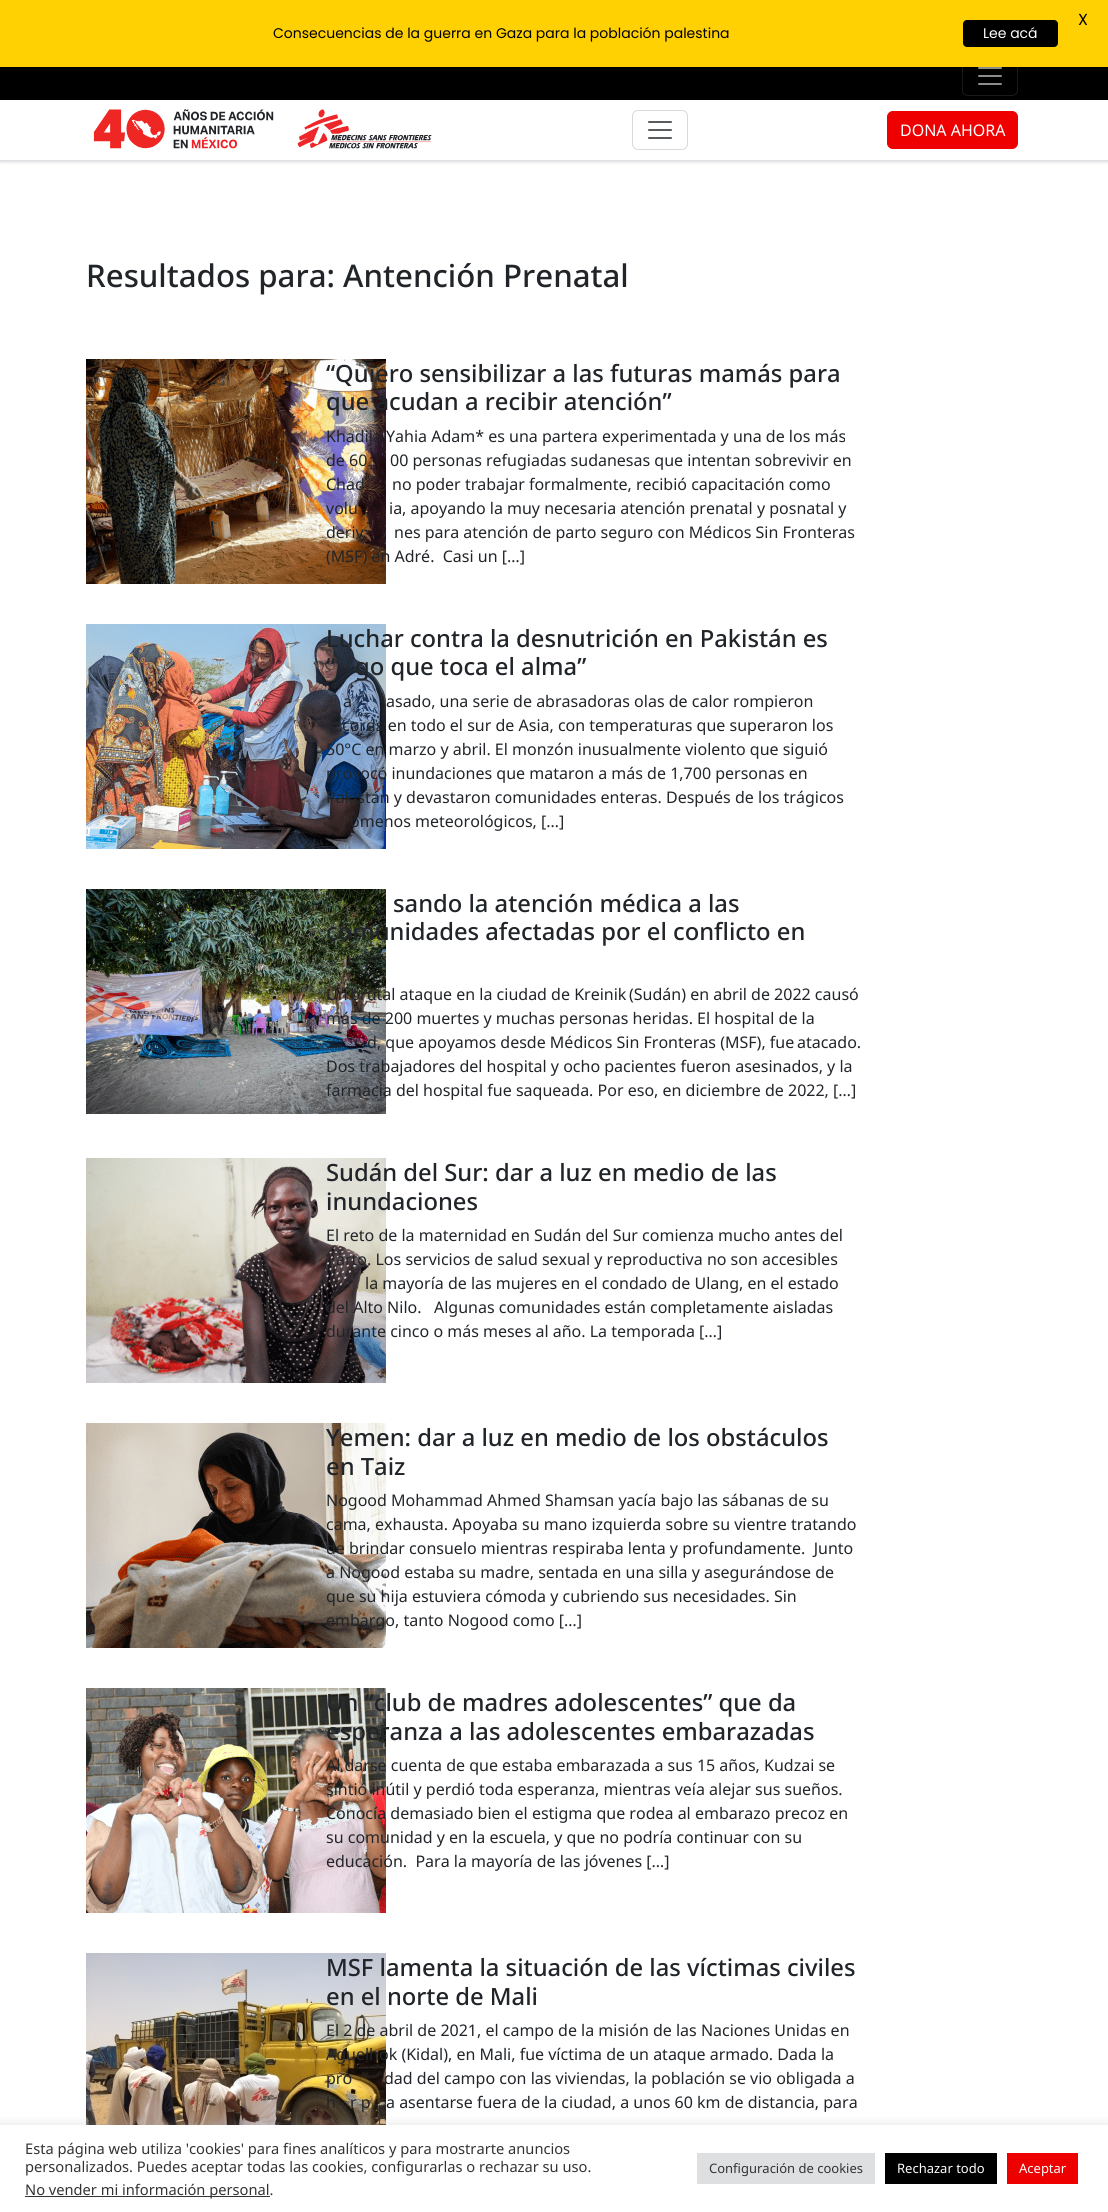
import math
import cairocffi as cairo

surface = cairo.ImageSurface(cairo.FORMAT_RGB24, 1108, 2212)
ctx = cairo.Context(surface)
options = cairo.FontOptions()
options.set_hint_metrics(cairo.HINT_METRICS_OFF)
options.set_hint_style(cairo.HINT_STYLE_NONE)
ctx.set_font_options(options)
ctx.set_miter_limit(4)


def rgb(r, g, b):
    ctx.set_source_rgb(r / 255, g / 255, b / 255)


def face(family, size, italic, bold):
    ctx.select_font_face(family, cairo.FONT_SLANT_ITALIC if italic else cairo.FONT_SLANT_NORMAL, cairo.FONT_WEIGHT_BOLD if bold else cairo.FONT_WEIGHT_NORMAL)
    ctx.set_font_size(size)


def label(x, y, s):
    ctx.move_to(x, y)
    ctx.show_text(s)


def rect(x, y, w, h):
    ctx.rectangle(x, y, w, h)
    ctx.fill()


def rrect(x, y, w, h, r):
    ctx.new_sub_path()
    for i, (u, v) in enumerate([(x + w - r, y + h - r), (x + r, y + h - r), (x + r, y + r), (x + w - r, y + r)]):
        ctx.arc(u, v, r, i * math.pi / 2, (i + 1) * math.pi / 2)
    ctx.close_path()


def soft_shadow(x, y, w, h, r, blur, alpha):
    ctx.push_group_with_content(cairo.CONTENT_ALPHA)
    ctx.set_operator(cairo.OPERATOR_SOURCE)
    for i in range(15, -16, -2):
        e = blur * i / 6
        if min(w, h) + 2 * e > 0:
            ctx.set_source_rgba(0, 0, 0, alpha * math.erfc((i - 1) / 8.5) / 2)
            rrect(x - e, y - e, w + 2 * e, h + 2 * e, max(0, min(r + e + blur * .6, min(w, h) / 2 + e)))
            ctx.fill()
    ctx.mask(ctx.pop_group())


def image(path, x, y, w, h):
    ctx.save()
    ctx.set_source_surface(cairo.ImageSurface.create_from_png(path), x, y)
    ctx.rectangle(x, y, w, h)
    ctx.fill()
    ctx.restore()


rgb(255, 255, 255)
ctx.paint()
rgb(0, 0, 0)
rect(0, 67, 1108, 33)
ctx.save()
ctx.set_fill_rule(cairo.FILL_RULE_EVEN_ODD)
ctx.new_path()
ctx.move_to(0, 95)
ctx.line_to(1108, 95)
ctx.line_to(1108, 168)
ctx.line_to(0, 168)
ctx.close_path()
ctx.move_to(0, 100)
ctx.line_to(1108, 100)
ctx.line_to(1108, 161)
ctx.line_to(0, 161)
ctx.close_path()
ctx.clip()
rgb(0, 0, 0)
soft_shadow(0, 101, 1108, 61, 0, 1.5, 0.16)
ctx.restore()
rrect(962.5, 56.5, 55, 39, 5.5)
rgb(26, 26, 26)
ctx.set_line_width(1)
ctx.stroke()
rgb(255, 208, 2)
rect(0, 0, 1108, 67)
face('Poppins', 16, 0, 0)
rgb(0, 0, 0)
label(1078, 25, 'X')
face('Poppins', 14, 0, 0)
label(273, 38, 'Consecuencias de la guerra en Gaza para la población palestina')
rrect(963, 20, 95, 27, 4)
ctx.fill()
rgb(255, 255, 255)
label(983, 38, 'Lee acá')
image('image0.png', 978, 67, 24, 18)
rgb(222, 226, 230)
rect(0, 160, 1108, 1)
image('image1.png', 93, 109, 339, 40)
rrect(632.5, 110.5, 55, 39, 5.5)
rgb(217, 217, 217)
ctx.stroke()
image('image2.png', 648, 121, 24, 18)
rgb(238, 0, 0)
rrect(887.5, 111.5, 130, 37, 5.5)
ctx.fill_preserve()
ctx.stroke()
face('Noto Sans', 16, 0, 0)
rgb(255, 255, 255)
label(900, 136, 'DONA AHORA')
face('Noto Sans Medium', 31.2, 0, 0)
rgb(33, 37, 41)
label(86, 287, 'Resultados para: Antención Prenatal')
image('image3.png', 86, 359, 300, 225)
face('Noto Sans Medium', 23.75, 0, 0)
label(326, 382, '“Quiero sensibilizar a las futuras mamás para')
label(326, 410, 'que acudan a recibir atención”')
face('Noto Sans', 16, 0, 0)
label(326, 442, 'Khadija Yahia Adam* es una partera experimentada y una de los más')
label(326, 466, 'de 60')
label(390, 466, '00 personas refugiadas sudanesas que intentan sobrevivir en')
label(326, 490, 'Chad')
label(392, 490, 'no poder trabajar formalmente, recibió capacitación como')
label(326, 514, 'volu')
label(389, 514, 'ia, apoyando la muy necesaria atención prenatal y posnatal y')
label(326, 538, 'deriv')
label(394, 538, 'nes para atención de parto seguro con Médicos Sin Fronteras')
label(326, 562, '(MSF) en Adré.  Casi un […]')
image('image4.png', 86, 624, 300, 225)
face('Noto Sans Medium', 23.75, 0, 0)
label(326, 647, 'Luchar contra la desnutrición en Pakistán es')
label(326, 675, '“')
label(355, 675, 'go que toca el alma”')
face('Noto Sans', 16, 0, 0)
label(343, 707, 'a')
label(386, 707, 'asado, una serie de abrasadoras olas de calor rompieron')
label(342, 731, 'cords en todo el sur de Asia, con temperaturas que superaron los')
label(326, 755, '50°C en marzo y abril. El monzón inusualmente violento que siguió')
label(326, 779, 'provocó inundaciones que mataron a más de 1,700 personas en')
label(326, 803, 'Pakistán y devastaron comunidades enteras. Después de los trágicos')
label(350, 827, 'ómenos meteorológicos, […]')
image('image5.png', 86, 889, 300, 225)
face('Noto Sans Medium', 23.75, 0, 0)
label(393, 912, 'sando la atención médica a las')
label(326, 940, 'comunidades afectadas por el conflicto en')
face('Noto Sans', 16, 0, 0)
label(326, 1000, 'Un brutal ataque en la ciudad de Kreinik (Sudán) en abril de 2022 causó')
label(326, 1024, 'más de 200 muertes y muchas personas heridas. El hospital de la')
label(367, 1048, 'd, que apoyamos desde Médicos Sin Fronteras (MSF), fue atacado.')
label(326, 1072, 'Dos trabajadores del hospital y ocho pacientes fueron asesinados, y la')
label(326, 1096, 'farmacia del hospital fue saqueada. Por eso, en diciembre de 2022, […]')
image('image6.png', 86, 1158, 300, 225)
face('Noto Sans Medium', 23.75, 0, 0)
label(326, 1181, 'Sudán del Sur: dar a luz en medio de las')
label(326, 1210, 'inundaciones')
face('Noto Sans', 16, 0, 0)
label(326, 1241, 'El reto de la maternidad en Sudán del Sur comienza mucho antes del')
label(336, 1265, 'arto. Los servicios de salud sexual y reproductiva no son accesibles')
label(365, 1289, 'la mayoría de las mujeres en el condado de Ulang, en el estado')
label(326, 1313, 'del Alto Nilo.   Algunas comunidades están completamente aisladas')
label(326, 1337, 'durante cinco o más meses al año. La temporada […]')
image('image7.png', 86, 1423, 300, 225)
face('Noto Sans Medium', 23.75, 0, 0)
label(326, 1446, 'Yemen: dar a luz en medio de los obstáculos')
label(326, 1475, 'en Taiz')
face('Noto Sans', 16, 0, 0)
label(326, 1506, 'Nogood Mohammad Ahmed Shamsan yacía bajo las sábanas de su')
label(326, 1530, 'cama, exhausta. Apoyaba su mano izquierda sobre su vientre tratando')
label(326, 1554, 'de brindar consuelo mientras respiraba lenta y profundamente.  Junto')
label(326, 1578, 'a Nogood estaba su madre, sentada en una silla y asegurándose de')
label(326, 1602, 'que su hija estuviera cómoda y cubriendo sus necesidades. Sin')
label(326, 1626, 'embargo, tanto Nogood como […]')
image('image8.png', 86, 1688, 300, 225)
face('Noto Sans Medium', 23.75, 0, 0)
label(326, 1711, 'Un “club de madres adolescentes” que da')
label(326, 1740, 'esperanza a las adolescentes embarazadas')
face('Noto Sans', 16, 0, 0)
label(326, 1771, 'Al darse cuenta de que estaba embarazada a sus 15 años, Kudzai se')
label(326, 1795, 'sintió inútil y perdió toda esperanza, mientras veía alejar sus sueños.')
label(326, 1819, 'Conocía demasiado bien el estigma que rodea al embarazo precoz en')
label(326, 1843, 'su comunidad y en la escuela, y que no podría continuar con su')
label(326, 1867, 'educación.  Para la mayoría de las jóvenes […]')
image('image9.png', 86, 1953, 300, 172)
face('Noto Sans Medium', 23.75, 0, 0)
label(326, 1976, 'MSF lamenta la situación de las víctimas civiles')
label(326, 2005, 'en el norte de Mali')
face('Noto Sans', 16, 0, 0)
label(326, 2036, 'El 2 de abril de 2021, el campo de la misión de las Naciones Unidas en')
label(326, 2060, 'Aguelhok (Kidal), en Mali, fue víctima de un ataque armado. Dada la')
label(326, 2084, 'pro')
label(384, 2084, 'dad del campo con las viviendas, la población se vio obligada a')
label(326, 2108, 'h')
label(350, 2108, 'r p')
label(386, 2108, 'a asentarse fuera de la ciudad, a unos 60 km de distancia, para')
rgb(172, 171, 171)
soft_shadow(0, 2124, 1108, 87, 0, 5, 0.3)
rgb(255, 255, 255)
rect(0, 2125, 1108, 87)
face('Noto Sans', 14.65, 0, 0)
rgb(51, 51, 51)
label(25, 2154, 'Esta página web utiliza \'cookies\' para fines analíticos y para mostrarte anuncios')
label(25, 2172, 'personalizados. Puedes aceptar todas las cookies, configurarlas o rechazar su uso.')
rect(25, 2196, 245, 1)
label(25, 2195, 'No vender mi información personal.')
rgb(222, 223, 224)
rect(697, 2153, 178, 31)
face('Noto Sans', 13, 0, 0)
rgb(51, 51, 51)
label(709, 2173, 'Configuración de cookies')
rgb(0, 0, 0)
rect(885, 2153, 112, 31)
rgb(255, 255, 255)
label(897, 2173, 'Rechazar todo')
rgb(238, 0, 0)
rect(1007, 2153, 71, 31)
rgb(255, 255, 255)
label(1019, 2173, 'Aceptar')
surface.write_to_png('render.png')
